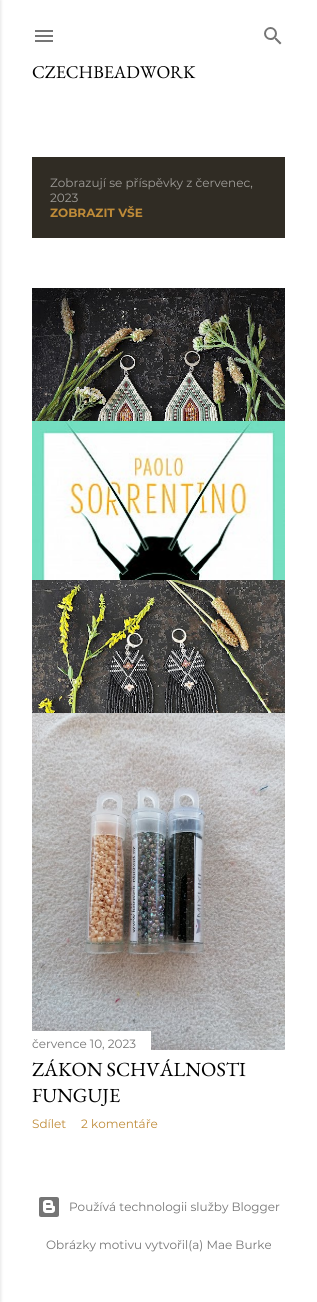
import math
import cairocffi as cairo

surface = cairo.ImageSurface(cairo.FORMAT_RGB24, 317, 1302)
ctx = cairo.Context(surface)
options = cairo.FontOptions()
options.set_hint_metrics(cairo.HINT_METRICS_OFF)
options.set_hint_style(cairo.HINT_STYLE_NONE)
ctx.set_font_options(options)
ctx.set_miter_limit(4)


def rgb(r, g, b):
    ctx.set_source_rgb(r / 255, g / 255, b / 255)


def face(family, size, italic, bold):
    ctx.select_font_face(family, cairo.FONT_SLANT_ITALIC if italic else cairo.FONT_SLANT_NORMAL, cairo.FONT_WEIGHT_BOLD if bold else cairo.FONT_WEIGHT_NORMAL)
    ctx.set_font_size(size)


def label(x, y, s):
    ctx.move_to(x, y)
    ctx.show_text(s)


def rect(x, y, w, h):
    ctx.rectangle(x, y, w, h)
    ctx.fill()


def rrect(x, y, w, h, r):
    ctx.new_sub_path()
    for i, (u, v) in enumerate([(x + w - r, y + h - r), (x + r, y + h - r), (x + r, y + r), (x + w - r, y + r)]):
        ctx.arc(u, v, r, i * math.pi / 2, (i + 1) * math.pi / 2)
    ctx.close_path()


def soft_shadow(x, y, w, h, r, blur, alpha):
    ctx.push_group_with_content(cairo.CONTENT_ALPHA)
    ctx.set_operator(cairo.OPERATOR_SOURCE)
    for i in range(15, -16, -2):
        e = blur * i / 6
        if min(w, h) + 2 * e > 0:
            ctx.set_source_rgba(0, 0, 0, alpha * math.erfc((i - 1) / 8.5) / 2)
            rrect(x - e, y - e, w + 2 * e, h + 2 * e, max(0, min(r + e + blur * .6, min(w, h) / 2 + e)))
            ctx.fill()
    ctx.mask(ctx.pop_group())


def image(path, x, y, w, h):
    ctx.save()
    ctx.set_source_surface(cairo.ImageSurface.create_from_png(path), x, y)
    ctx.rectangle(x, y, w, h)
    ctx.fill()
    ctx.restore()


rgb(255, 255, 255)
ctx.paint()
rgb(0, 0, 0)
soft_shadow(-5, 0, 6, 1302, 0, 1.5, 0.1)
image('image0.png', 35, 30, 18, 12)
image('image1.png', 264, 27, 18, 18)
face('EB Garamond', 18, 0, 0)
rgb(0, 0, 0)
label(32, 78, 'CZECHBEADWORK')
rgb(48, 44, 36)
rect(32, 157, 253, 81)
face('Montserrat', 12, 0, 0)
rgb(160, 158, 154)
label(50, 187, 'Zobrazují se příspěvky z červenec,')
label(50, 202, '2023')
face('Montserrat', 12, 0, 1)
rgb(191, 139, 56)
label(50, 217, 'ZOBRAZIT VŠE')
image('image2.png', 32, 288, 253, 133)
image('image3.png', 32, 421, 253, 159)
image('image4.png', 32, 580, 253, 133)
image('image5.png', 32, 713, 253, 337)
rgb(255, 255, 255)
rect(32, 1031, 119, 19)
face('Montserrat', 12, 0, 0)
rgb(117, 117, 117)
label(32, 1048, 'července 10, 2023')
face('EB Garamond', 20, 0, 0)
rgb(0, 0, 0)
label(32, 1076, 'ZÁKON SCHVÁLNOSTI')
label(32, 1102, 'FUNGUJE')
face('Montserrat', 12, 0, 0)
rgb(191, 139, 56)
label(32, 1128, 'Sdílet')
label(81, 1128, '2 komentáře')
image('image6.png', 39, 1197, 20, 20)
rgb(117, 117, 117)
label(69, 1211, 'Používá technologii služby Blogger')
label(46, 1249, 'Obrázky motivu vytvořil(a) Mae Burke')
surface.write_to_png('render.png')
